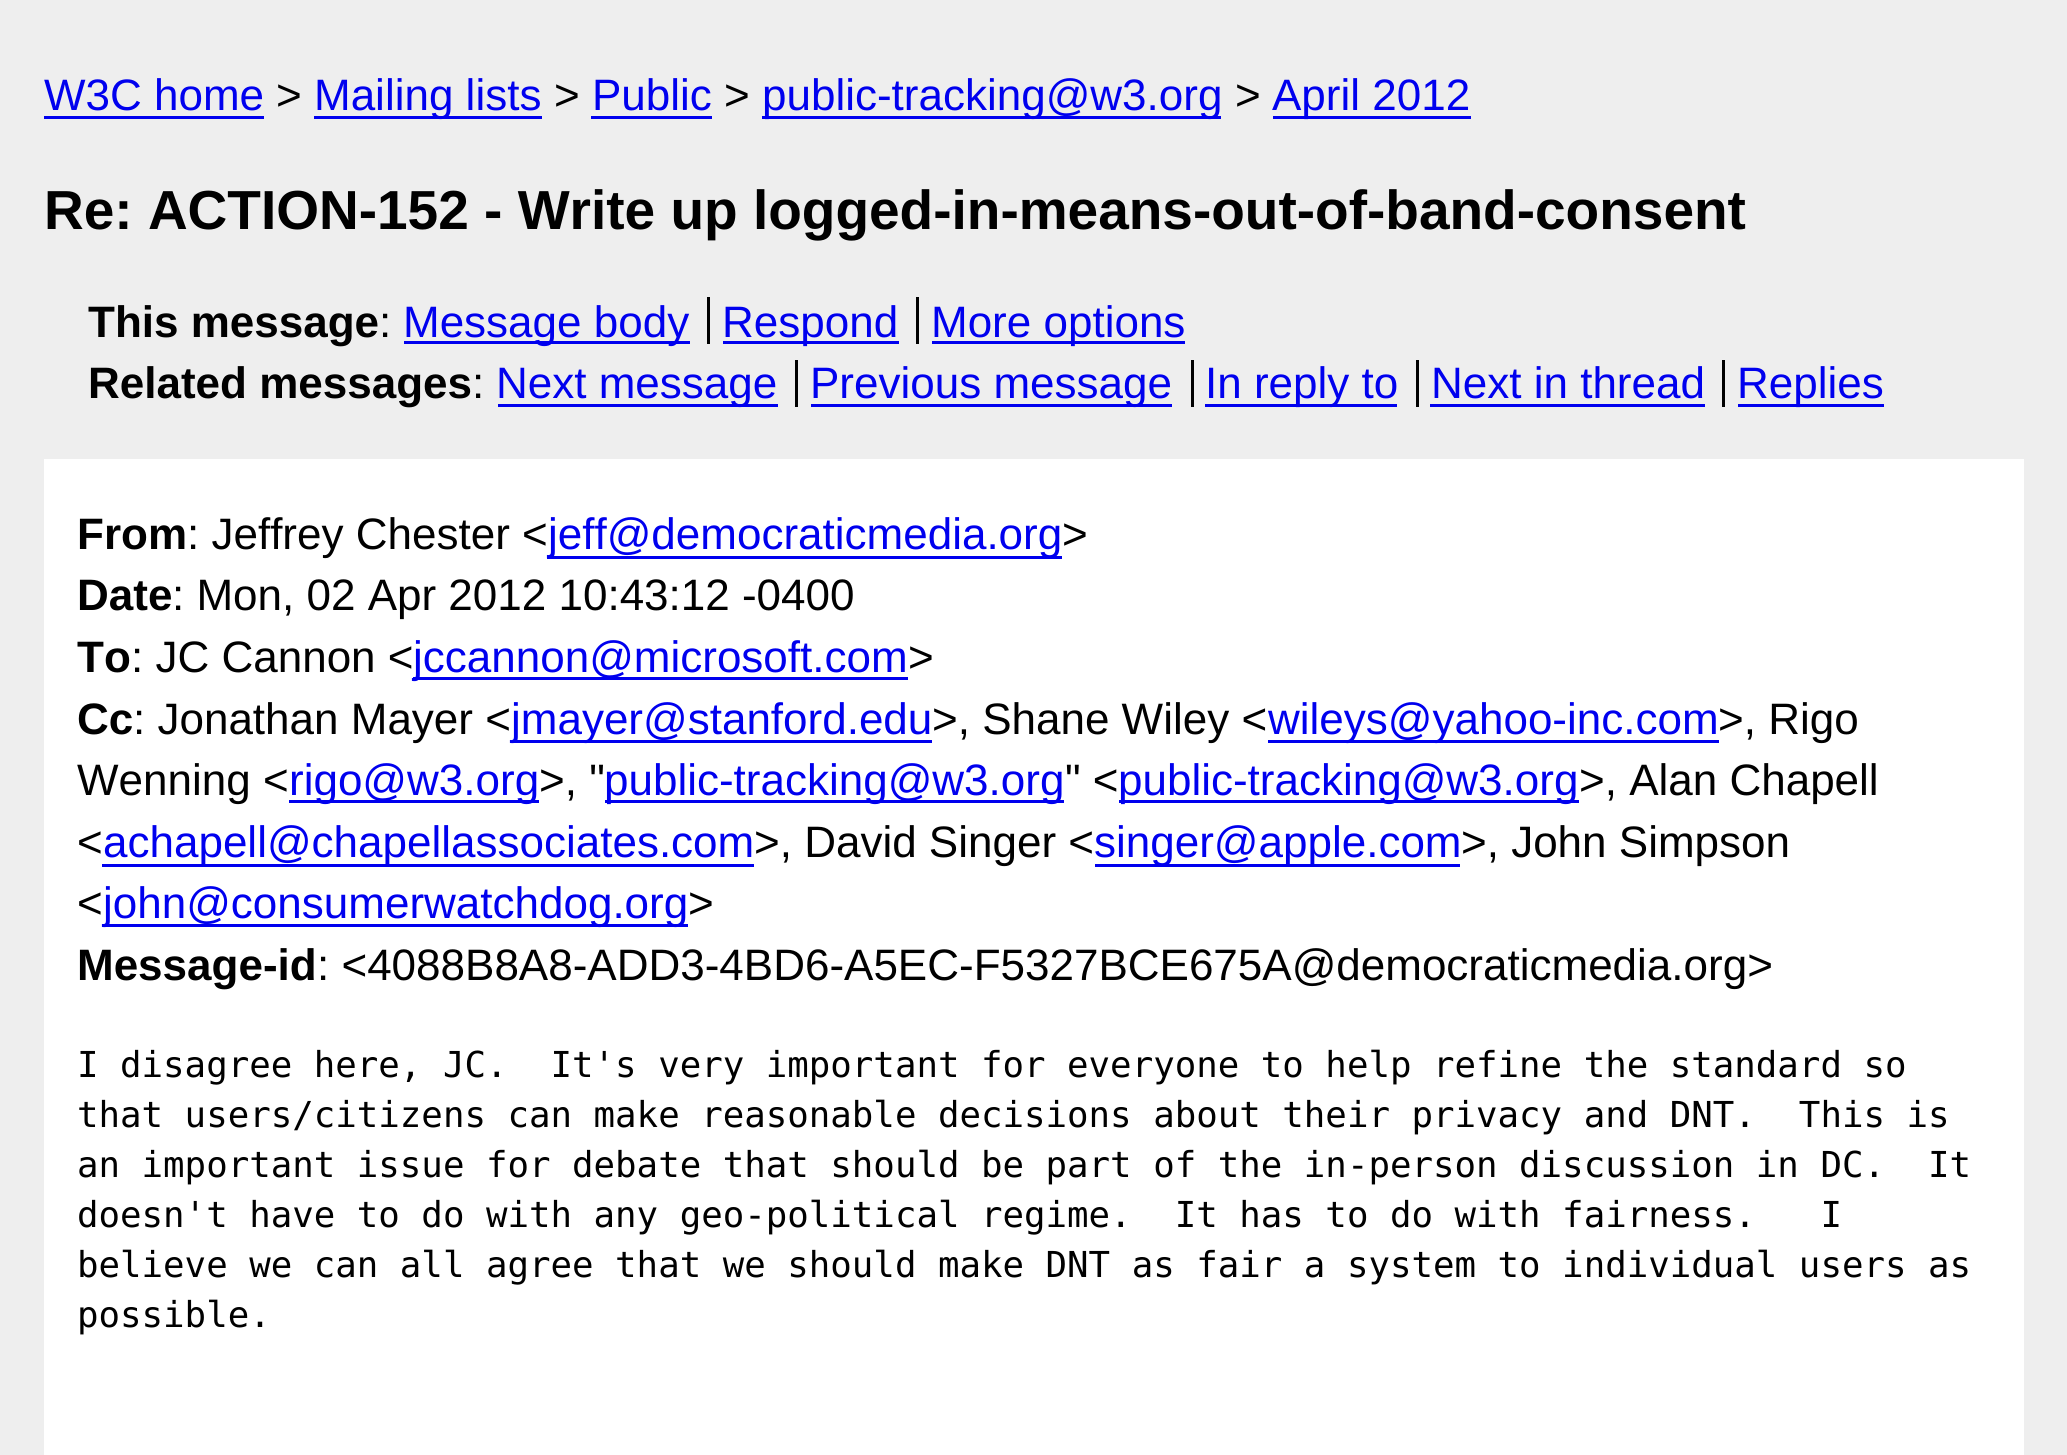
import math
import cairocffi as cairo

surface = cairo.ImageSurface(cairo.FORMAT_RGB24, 2067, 1455)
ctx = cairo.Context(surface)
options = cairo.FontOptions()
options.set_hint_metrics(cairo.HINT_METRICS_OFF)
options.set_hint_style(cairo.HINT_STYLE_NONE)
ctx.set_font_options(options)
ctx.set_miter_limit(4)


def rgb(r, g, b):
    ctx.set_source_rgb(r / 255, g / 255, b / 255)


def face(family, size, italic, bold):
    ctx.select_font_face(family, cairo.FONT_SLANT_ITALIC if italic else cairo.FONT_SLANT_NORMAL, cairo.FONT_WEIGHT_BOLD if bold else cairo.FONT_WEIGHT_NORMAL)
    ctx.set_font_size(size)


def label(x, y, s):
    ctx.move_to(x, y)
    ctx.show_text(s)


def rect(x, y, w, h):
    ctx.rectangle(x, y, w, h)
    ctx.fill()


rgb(238, 238, 238)
ctx.paint()
face('Liberation Sans', 44, 0, 0)
rgb(0, 0, 238)
label(44, 110, 'W3C home')
rect(44, 116, 220, 3)
rgb(0, 0, 0)
label(276, 110, '>')
rgb(0, 0, 238)
rect(314, 116, 228, 3)
label(314, 110, 'Mailing lists')
rgb(0, 0, 0)
label(554, 110, '>')
rgb(0, 0, 238)
label(592, 110, 'Public')
rect(591, 116, 121, 3)
rgb(0, 0, 0)
label(724, 110, '>')
rgb(0, 0, 238)
rect(762, 116, 459, 3)
label(762, 110, 'public-tracking@w3.org')
rgb(0, 0, 0)
label(1235, 110, '>')
rgb(0, 0, 238)
rect(1273, 116, 198, 3)
label(1272, 110, 'April 2012')
face('Liberation Sans', 55, 0, 1)
rgb(0, 0, 0)
label(44, 229, 'Re: ACTION-152 - Write up logged-in-means-out-of-band-consent')
face('Liberation Sans', 44, 0, 1)
label(88, 337, 'This message')
face('Liberation Sans', 44, 0, 0)
label(379, 337, ':')
rgb(0, 0, 238)
rect(404, 341, 286, 3)
label(403, 337, 'Message body')
rect(723, 341, 176, 3)
label(722, 337, 'Respond')
rgb(0, 0, 0)
rect(707, 297, 3, 47)
rgb(0, 0, 238)
rect(932, 341, 253, 3)
label(931, 337, 'More options')
rgb(0, 0, 0)
rect(916, 297, 3, 47)
face('Liberation Sans', 44, 0, 1)
label(88, 398, 'Related messages')
face('Liberation Sans', 44, 0, 0)
label(472, 398, ':')
rgb(0, 0, 238)
rect(498, 404, 280, 3)
label(496, 398, 'Next message')
rect(811, 404, 361, 3)
label(810, 398, 'Previous message')
rgb(0, 0, 0)
rect(795, 360, 3, 47)
rgb(0, 0, 238)
rect(1205, 404, 192, 3)
label(1205, 398, 'In reply to')
rgb(0, 0, 0)
rect(1191, 360, 3, 47)
rgb(0, 0, 238)
label(1431, 398, 'Next in thread')
rgb(0, 0, 0)
rect(1416, 360, 3, 47)
rect(1722, 360, 3, 47)
rgb(0, 0, 238)
rect(1430, 404, 275, 3)
rect(1738, 404, 146, 3)
label(1737, 398, 'Replies')
rgb(255, 255, 255)
rect(44, 459, 1980, 996)
face('Liberation Sans', 44, 0, 1)
rgb(0, 0, 0)
label(77, 549, 'From')
face('Liberation Sans', 44, 0, 0)
label(187, 549, ': Jeffrey Chester <')
rgb(0, 0, 238)
rect(547, 556, 515, 3)
label(548, 549, 'jeff@democraticmedia.org')
rgb(0, 0, 0)
label(1062, 549, '>')
face('Liberation Sans', 44, 0, 1)
label(77, 610, 'Date')
face('Liberation Sans', 44, 0, 0)
label(172, 610, ': Mon, 02 Apr 2012 10:43:12 -0400')
face('Liberation Sans', 44, 0, 1)
label(77, 672, 'To')
face('Liberation Sans', 44, 0, 0)
label(131, 672, ': JC Cannon <')
rgb(0, 0, 238)
rect(413, 677, 495, 3)
label(413, 672, 'jccannon@microsoft.com')
rgb(0, 0, 0)
label(908, 672, '>')
face('Liberation Sans', 44, 0, 1)
label(77, 734, 'Cc')
face('Liberation Sans', 44, 0, 0)
label(133, 734, ': Jonathan Mayer <')
rgb(0, 0, 238)
rect(512, 740, 420, 3)
label(511, 734, 'jmayer@stanford.edu')
rgb(0, 0, 0)
label(932, 734, '>, Shane Wiley <')
rgb(0, 0, 238)
rect(1268, 740, 451, 3)
label(1268, 734, 'wileys@yahoo-inc.com')
rgb(0, 0, 0)
label(1718, 734, '>, Rigo')
label(77, 795, 'Wenning <')
rgb(0, 0, 238)
rect(289, 800, 250, 3)
label(289, 795, 'rigo@w3.org')
rgb(0, 0, 0)
label(539, 795, '>, "')
rgb(0, 0, 238)
rect(605, 800, 459, 3)
label(604, 795, 'public-tracking@w3.org')
rgb(0, 0, 0)
label(1065, 795, '" <')
rgb(0, 0, 238)
rect(1119, 800, 460, 3)
label(1118, 795, 'public-tracking@w3.org')
rgb(0, 0, 0)
label(1579, 795, '>, Alan Chapell')
label(77, 857, '<')
rgb(0, 0, 238)
rect(102, 864, 652, 3)
label(103, 857, 'achapell@chapellassociates.com')
rgb(0, 0, 0)
label(754, 857, '>, David Singer <')
rgb(0, 0, 238)
rect(1095, 864, 365, 3)
label(1094, 857, 'singer@apple.com')
rgb(0, 0, 0)
label(1461, 857, '>, John Simpson')
label(77, 918, '<')
rgb(0, 0, 238)
rect(102, 924, 586, 3)
label(103, 918, 'john@consumerwatchdog.org')
rgb(0, 0, 0)
label(688, 918, '>')
face('Liberation Sans', 44, 0, 1)
label(77, 980, 'Message-id')
face('Liberation Sans', 44, 0, 0)
label(317, 980, ': <4088B8A8-ADD3-4BD6-A5EC-F5327BCE675A@democraticmedia.org>')
face('DejaVu Sans Mono', 35.75, 0, 0)
label(77, 1077, 'I disagree here, JC.  It\'s very important for everyone to help refine the standard so')
label(77, 1127, 'that users/citizens can make reasonable decisions about their privacy and DNT.  This is')
label(77, 1177, 'an important issue for debate that should be part of the in-person discussion in DC.  It')
label(77, 1227, 'doesn\'t have to do with any geo-political regime.  It has to do with fairness.   I')
label(77, 1277, 'believe we can all agree that we should make DNT as fair a system to individual users as')
label(77, 1327, 'possible.')
surface.write_to_png('render.png')
